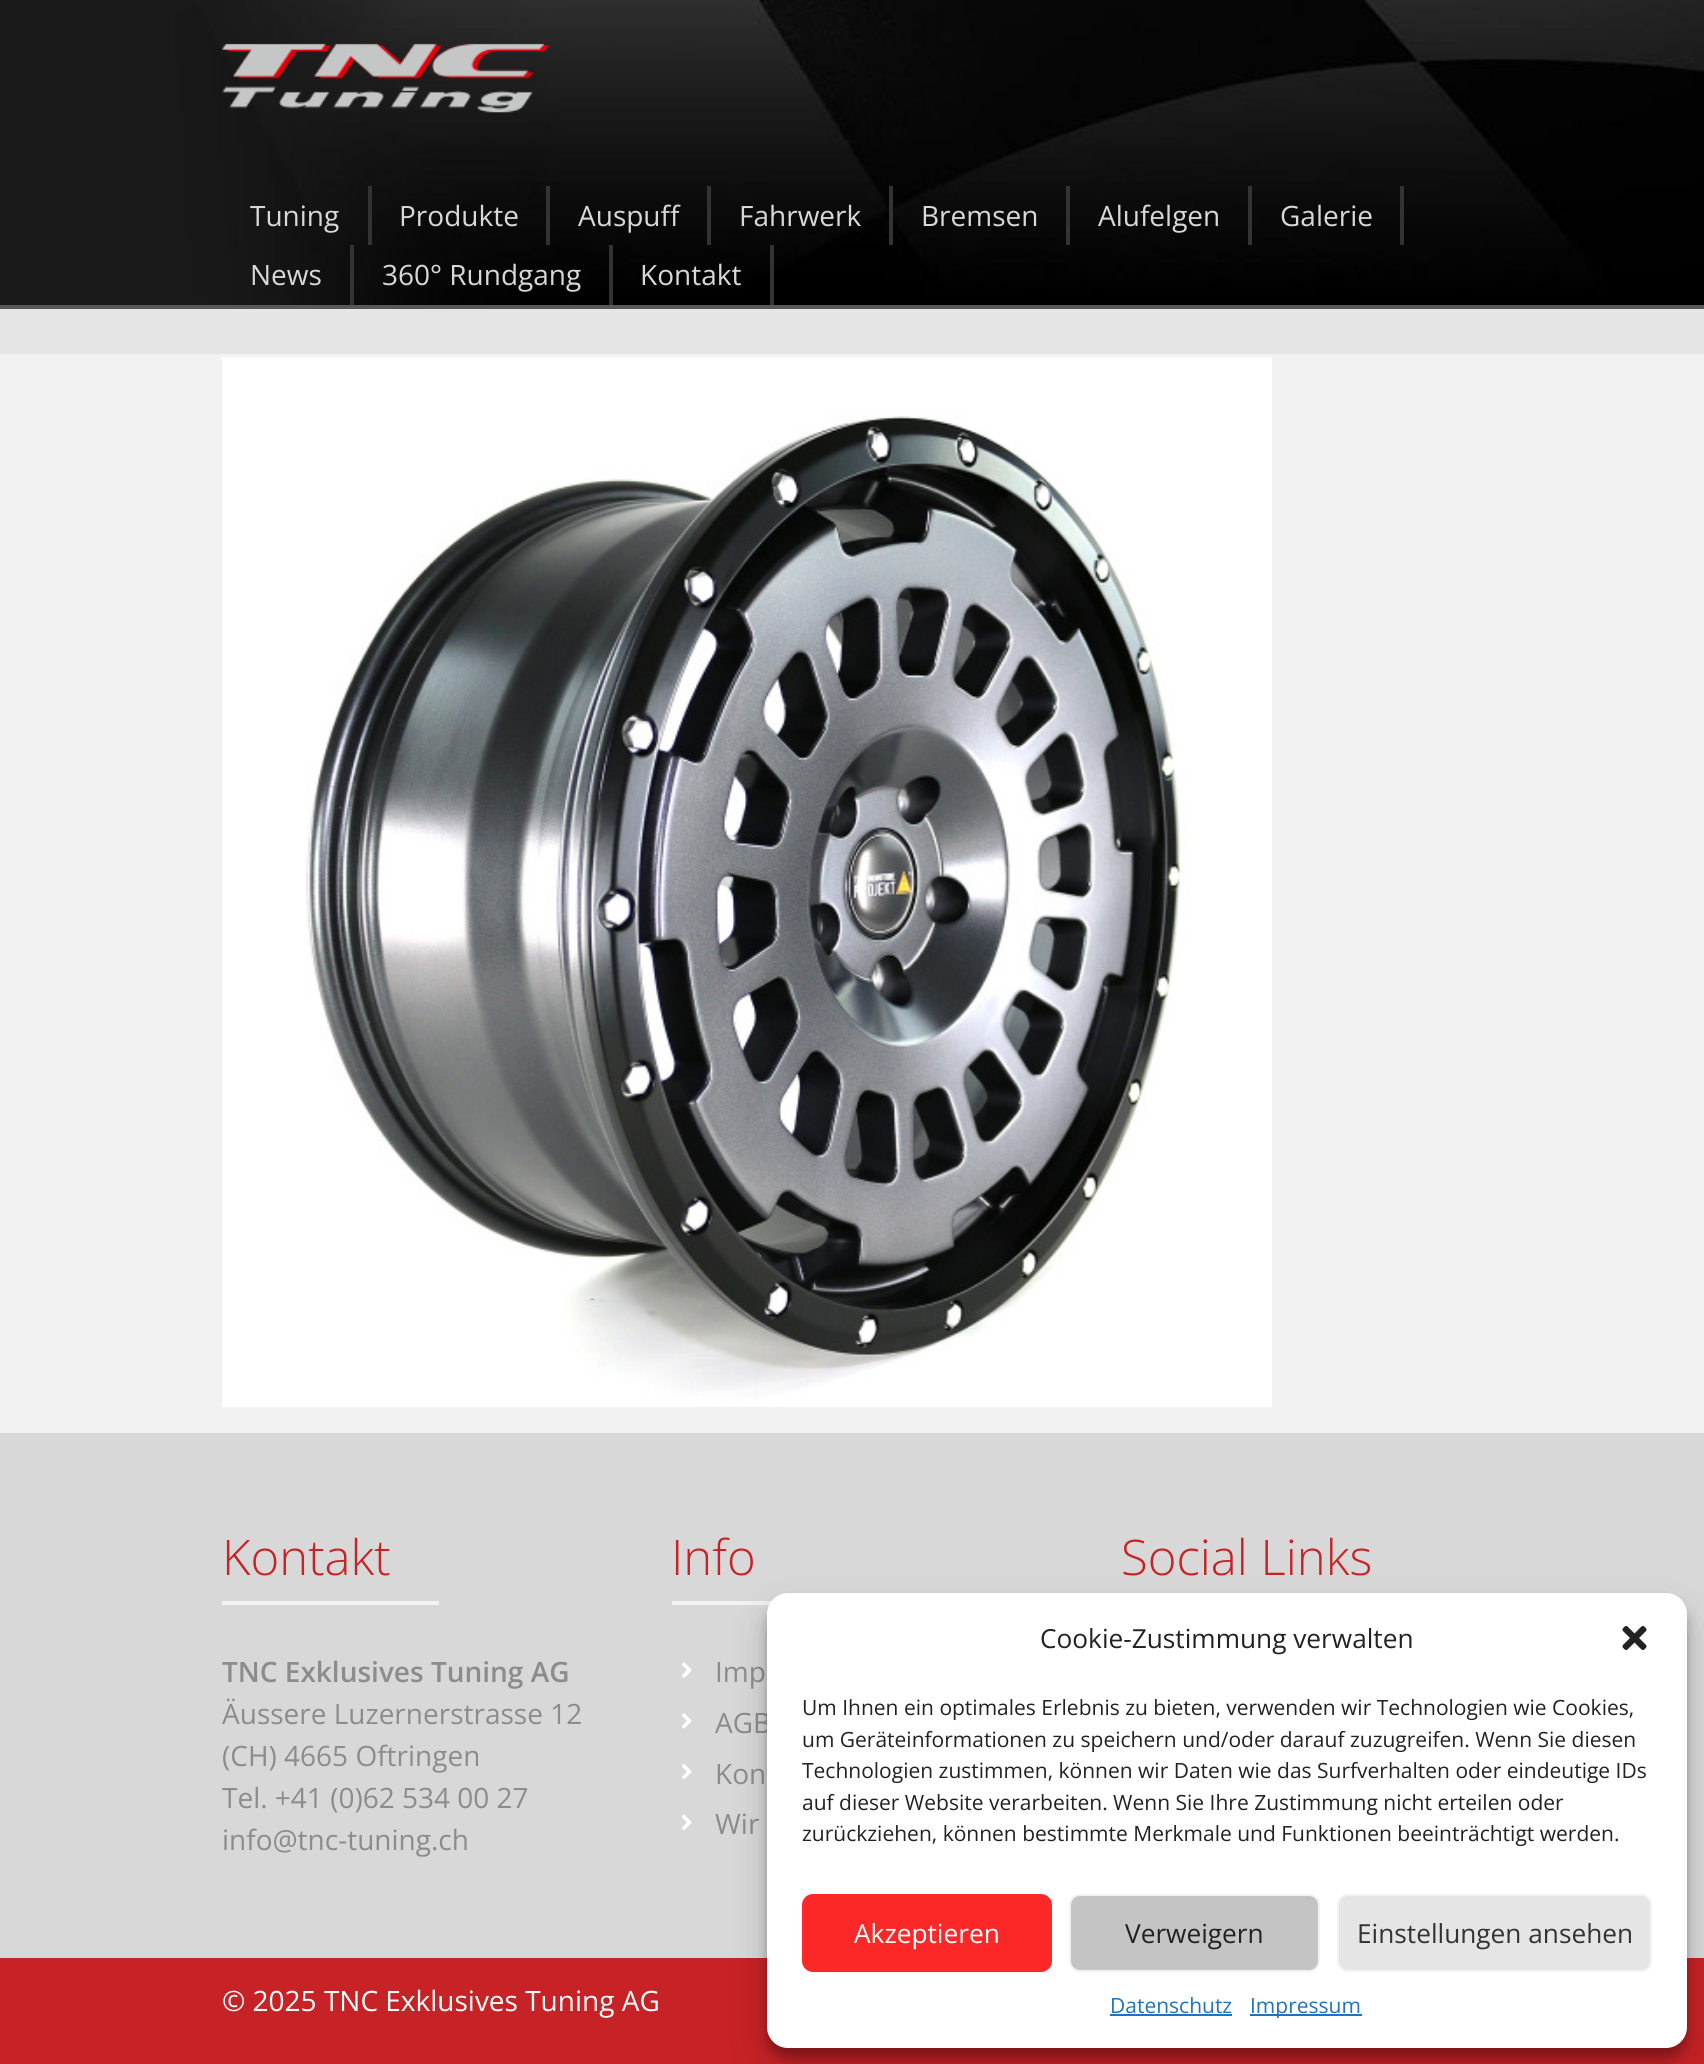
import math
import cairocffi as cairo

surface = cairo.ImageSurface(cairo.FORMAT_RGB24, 1704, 2064)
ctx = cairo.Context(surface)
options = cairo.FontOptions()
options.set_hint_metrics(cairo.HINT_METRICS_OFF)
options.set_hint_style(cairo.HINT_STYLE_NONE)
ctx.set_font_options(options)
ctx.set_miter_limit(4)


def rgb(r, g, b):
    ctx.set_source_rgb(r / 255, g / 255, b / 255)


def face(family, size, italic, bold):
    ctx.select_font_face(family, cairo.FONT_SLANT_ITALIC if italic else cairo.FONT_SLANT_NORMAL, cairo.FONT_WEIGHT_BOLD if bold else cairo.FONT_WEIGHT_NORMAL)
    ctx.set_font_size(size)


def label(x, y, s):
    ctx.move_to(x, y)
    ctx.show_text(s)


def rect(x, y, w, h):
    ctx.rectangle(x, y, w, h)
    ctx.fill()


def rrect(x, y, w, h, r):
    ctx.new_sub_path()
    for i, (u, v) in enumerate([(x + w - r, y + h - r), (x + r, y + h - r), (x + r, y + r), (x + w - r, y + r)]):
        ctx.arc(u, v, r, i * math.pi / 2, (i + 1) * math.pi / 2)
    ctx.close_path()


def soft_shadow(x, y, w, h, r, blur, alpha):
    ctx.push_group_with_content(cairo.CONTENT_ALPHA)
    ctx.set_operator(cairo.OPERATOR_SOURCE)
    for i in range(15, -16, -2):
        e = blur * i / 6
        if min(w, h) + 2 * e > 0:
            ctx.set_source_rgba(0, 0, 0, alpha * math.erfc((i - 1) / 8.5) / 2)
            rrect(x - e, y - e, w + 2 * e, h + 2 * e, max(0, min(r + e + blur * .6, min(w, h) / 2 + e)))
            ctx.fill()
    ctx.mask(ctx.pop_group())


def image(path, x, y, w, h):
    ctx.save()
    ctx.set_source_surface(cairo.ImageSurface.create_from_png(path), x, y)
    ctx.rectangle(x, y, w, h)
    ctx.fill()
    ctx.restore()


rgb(242, 242, 242)
ctx.paint()
image('image0.png', 0, 0, 1704, 305)
rgb(88, 88, 88)
rect(0, 305, 1704, 4)
image('image1.png', 222, 43, 328, 70)
rgb(51, 51, 51)
rect(368, 186, 4, 59)
face('Open Sans', 28, 0, 0)
rgb(216, 216, 216)
label(250, 226, 'Tuning')
rgb(51, 51, 51)
rect(546, 186, 4, 59)
rgb(216, 216, 216)
label(399, 226, 'Produkte')
rgb(51, 51, 51)
rect(707, 186, 4, 59)
rgb(216, 216, 216)
label(578, 226, 'Auspuff')
rgb(51, 51, 51)
rect(889, 186, 4, 59)
rgb(216, 216, 216)
label(739, 226, 'Fahrwerk')
rgb(51, 51, 51)
rect(1066, 186, 4, 59)
rgb(216, 216, 216)
label(921, 226, 'Bremsen')
rgb(51, 51, 51)
rect(1248, 186, 4, 59)
rgb(216, 216, 216)
label(1098, 226, 'Alufelgen')
rgb(51, 51, 51)
rect(1400, 186, 4, 59)
rgb(216, 216, 216)
label(1280, 226, 'Galerie')
rgb(51, 51, 51)
rect(350, 245, 4, 60)
rgb(216, 216, 216)
label(250, 285, 'News')
rgb(51, 51, 51)
rect(609, 245, 4, 60)
rgb(216, 216, 216)
label(382, 285, '360° Rundgang')
rgb(51, 51, 51)
rect(770, 245, 4, 60)
rgb(216, 216, 216)
label(640, 285, 'Kontakt')
rgb(229, 229, 229)
rect(0, 309, 1704, 45)
image('image2.png', 222, 357, 1050, 1050)
rgb(216, 216, 216)
rect(0, 1433, 1704, 525)
face('Open Sans Light', 49, 0, 0)
rgb(199, 34, 37)
label(222, 1575, 'Kontakt')
rgb(242, 242, 242)
rect(222, 1601, 217, 4)
face('Open Sans SemiBold', 28, 0, 0)
rgb(140, 140, 140)
label(222, 1682, 'TNC Exklusives Tuning AG')
face('Open Sans', 28, 0, 0)
label(222, 1724, 'Äussere Luzernerstrasse 12')
label(222, 1766, '(CH) 4665 Oftringen')
label(222, 1808, 'Tel. +41 (0)62 534 00 27')
label(222, 1850, 'info@tnc-tuning.ch')
face('Open Sans Light', 49, 0, 0)
rgb(199, 34, 37)
label(671, 1575, 'Info')
rgb(242, 242, 242)
rect(672, 1601, 100, 4)
image('image3.png', 682, 1662, 10, 16)
face('Open Sans', 28, 0, 0)
rgb(140, 140, 140)
label(715, 1682, 'Imp')
image('image4.png', 682, 1713, 10, 16)
label(715, 1733, 'AGB')
image('image5.png', 682, 1764, 10, 16)
label(715, 1784, 'Kon')
image('image6.png', 682, 1814, 10, 16)
label(715, 1834, 'Wir')
face('Open Sans Light', 49, 0, 0)
rgb(199, 34, 37)
label(1121, 1575, 'Social Links')
rect(0, 1958, 1704, 106)
face('Open Sans', 28, 0, 0)
rgb(255, 255, 255)
label(222, 2011, '© 2025 TNC Exklusives Tuning AG')
rgb(0, 0, 0)
soft_shadow(767, 1603, 920, 455, 21, 5, 0.23)
soft_shadow(767, 1610, 920, 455, 21, 17.5, 0.19)
rgb(255, 255, 255)
rrect(767, 1593, 920, 455, 21)
ctx.fill()
face('Open Sans', 26.25, 0, 0)
rgb(34, 34, 34)
label(1040, 1648, 'Cookie-Zustimmung verwalten')
image('image7.png', 1622, 1626, 25, 24)
face('Open Sans', 21, 0, 0)
label(802, 1715, 'Um Ihnen ein optimales Erlebnis zu bieten, verwenden wir Technologien wie Cookies,')
label(802, 1747, 'um Geräteinformationen zu speichern und/oder darauf zuzugreifen. Wenn Sie diesen')
label(802, 1778, 'Technologien zustimmen, können wir Daten wie das Surfverhalten oder eindeutige IDs')
label(802, 1810, 'auf dieser Website verarbeiten. Wenn Sie Ihre Zustimmung nicht erteilen oder')
label(802, 1841, 'zurückziehen, können bestimmte Merkmale und Funktionen beeinträchtigt werden.')
rgb(252, 40, 40)
rrect(803, 1895, 248, 76, 10)
ctx.fill_preserve()
rgb(255, 40, 40)
ctx.stroke()
face('Open Sans', 26.25, 0, 0)
rgb(255, 255, 255)
label(854, 1943, 'Akzeptieren')
rgb(196, 196, 196)
rrect(1070, 1895, 249, 76, 10)
ctx.fill_preserve()
rgb(242, 242, 242)
ctx.stroke()
rgb(34, 34, 34)
label(1125, 1943, 'Verweigern')
rgb(229, 229, 229)
rrect(1338, 1895, 313, 76, 10)
ctx.fill_preserve()
rgb(242, 242, 242)
ctx.stroke()
rgb(51, 51, 51)
label(1357, 1943, 'Einstellungen ansehen')
face('Open Sans', 21, 0, 0)
rgb(30, 115, 190)
label(1110, 2013, 'Datenschutz')
rect(1110, 2014, 122, 2)
rect(1250, 2014, 112, 2)
label(1250, 2013, 'Impressum')
surface.write_to_png('render.png')
